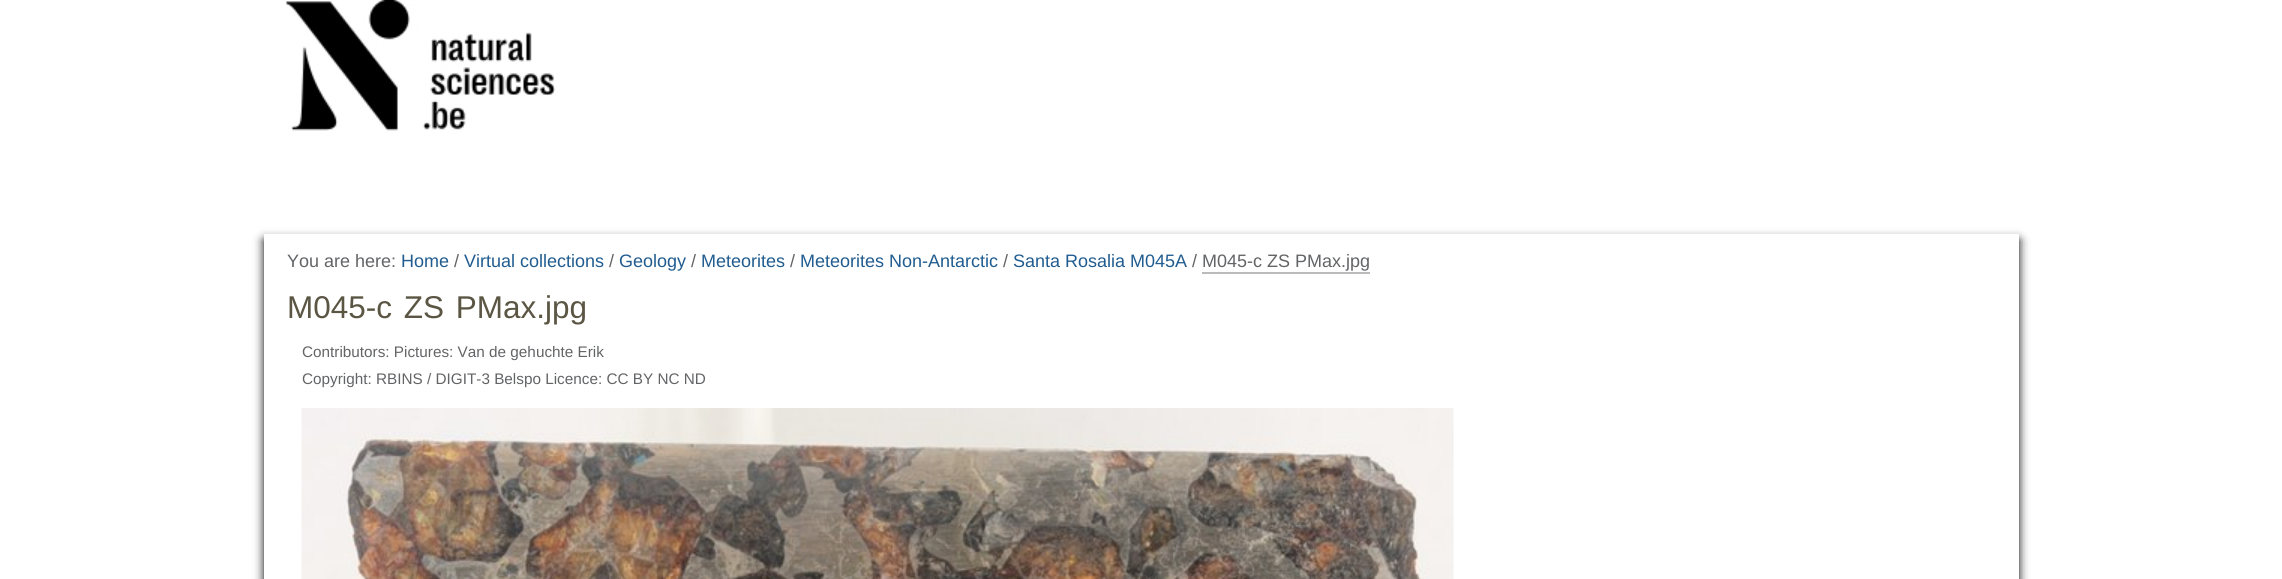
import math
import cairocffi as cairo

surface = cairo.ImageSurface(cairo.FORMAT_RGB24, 2282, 579)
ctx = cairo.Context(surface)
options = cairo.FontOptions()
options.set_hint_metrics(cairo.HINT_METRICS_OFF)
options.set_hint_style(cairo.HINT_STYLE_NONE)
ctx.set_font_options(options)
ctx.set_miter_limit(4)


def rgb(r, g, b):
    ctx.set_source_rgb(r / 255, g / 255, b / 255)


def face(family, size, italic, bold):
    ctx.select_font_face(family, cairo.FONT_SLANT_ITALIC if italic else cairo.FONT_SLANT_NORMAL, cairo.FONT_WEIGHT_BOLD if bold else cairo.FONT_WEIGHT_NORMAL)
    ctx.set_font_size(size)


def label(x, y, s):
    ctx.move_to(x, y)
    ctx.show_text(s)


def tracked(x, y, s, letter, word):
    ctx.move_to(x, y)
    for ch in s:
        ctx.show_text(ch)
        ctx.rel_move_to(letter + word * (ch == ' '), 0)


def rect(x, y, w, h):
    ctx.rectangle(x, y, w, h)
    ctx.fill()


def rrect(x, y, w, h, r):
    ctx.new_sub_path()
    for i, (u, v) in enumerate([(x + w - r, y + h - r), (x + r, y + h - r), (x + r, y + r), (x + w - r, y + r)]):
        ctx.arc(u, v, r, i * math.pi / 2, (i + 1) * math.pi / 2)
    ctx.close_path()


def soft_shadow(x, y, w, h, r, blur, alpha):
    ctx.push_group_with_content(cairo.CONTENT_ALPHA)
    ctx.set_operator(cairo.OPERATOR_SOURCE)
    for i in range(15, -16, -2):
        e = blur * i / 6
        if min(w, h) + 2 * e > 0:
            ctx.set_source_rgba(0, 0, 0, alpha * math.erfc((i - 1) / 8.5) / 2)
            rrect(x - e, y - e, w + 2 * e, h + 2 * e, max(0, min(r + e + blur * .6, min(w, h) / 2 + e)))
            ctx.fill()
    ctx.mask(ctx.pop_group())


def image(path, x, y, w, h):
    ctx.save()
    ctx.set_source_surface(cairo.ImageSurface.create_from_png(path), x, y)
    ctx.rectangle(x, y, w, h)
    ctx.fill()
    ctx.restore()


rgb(255, 255, 255)
ctx.paint()
image('image0.png', 286, 0, 270, 131)
ctx.save()
ctx.set_fill_rule(cairo.FILL_RULE_EVEN_ODD)
ctx.new_path()
ctx.move_to(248, 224)
ctx.line_to(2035, 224)
ctx.line_to(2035, 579)
ctx.line_to(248, 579)
ctx.close_path()
ctx.move_to(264, 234)
ctx.line_to(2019, 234)
ctx.line_to(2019, 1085)
ctx.line_to(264, 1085)
ctx.close_path()
ctx.clip()
rgb(0, 0, 0)
soft_shadow(264, 240, 1755, 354, 0, 5, 1)
ctx.restore()
face('Liberation Sans', 18, 0, 0)
rgb(99, 100, 102)
label(287, 267, 'You are here:')
rgb(32, 92, 144)
label(401, 267, 'Home')
rgb(99, 100, 102)
label(454, 267, '/')
rgb(32, 92, 144)
label(464, 267, 'Virtual collections')
rgb(99, 100, 102)
label(609, 267, '/')
rgb(32, 92, 144)
label(619, 267, 'Geology')
rgb(99, 100, 102)
label(691, 267, '/')
rgb(32, 92, 144)
label(701, 267, 'Meteorites')
rgb(99, 100, 102)
label(790, 267, '/')
rgb(32, 92, 144)
label(800, 267, 'Meteorites Non-Antarctic')
rgb(99, 100, 102)
label(1003, 267, '/')
rgb(32, 92, 144)
label(1013, 267, 'Santa Rosalia M045A')
rgb(99, 100, 102)
label(1192, 267, '/')
label(1202, 267, 'M045-c ZS PMax.jpg')
rgb(187, 187, 187)
rect(1202, 272, 168, 2)
face('Liberation Sans', 31.5, 0, 0)
rgb(91, 86, 68)
tracked(287, 318, 'M045-c ZS PMax.jpg', 0, 3)
face('Liberation Sans', 15.3, 0, 0)
rgb(99, 100, 102)
label(302, 357, 'Contributors: Pictures: Van de gehuchte Erik')
label(302, 384, 'Copyright: RBINS / DIGIT-3 Belspo Licence: CC BY NC ND')
image('image1.png', 301, 408, 1153, 171)
surface.write_to_png('render.png')
